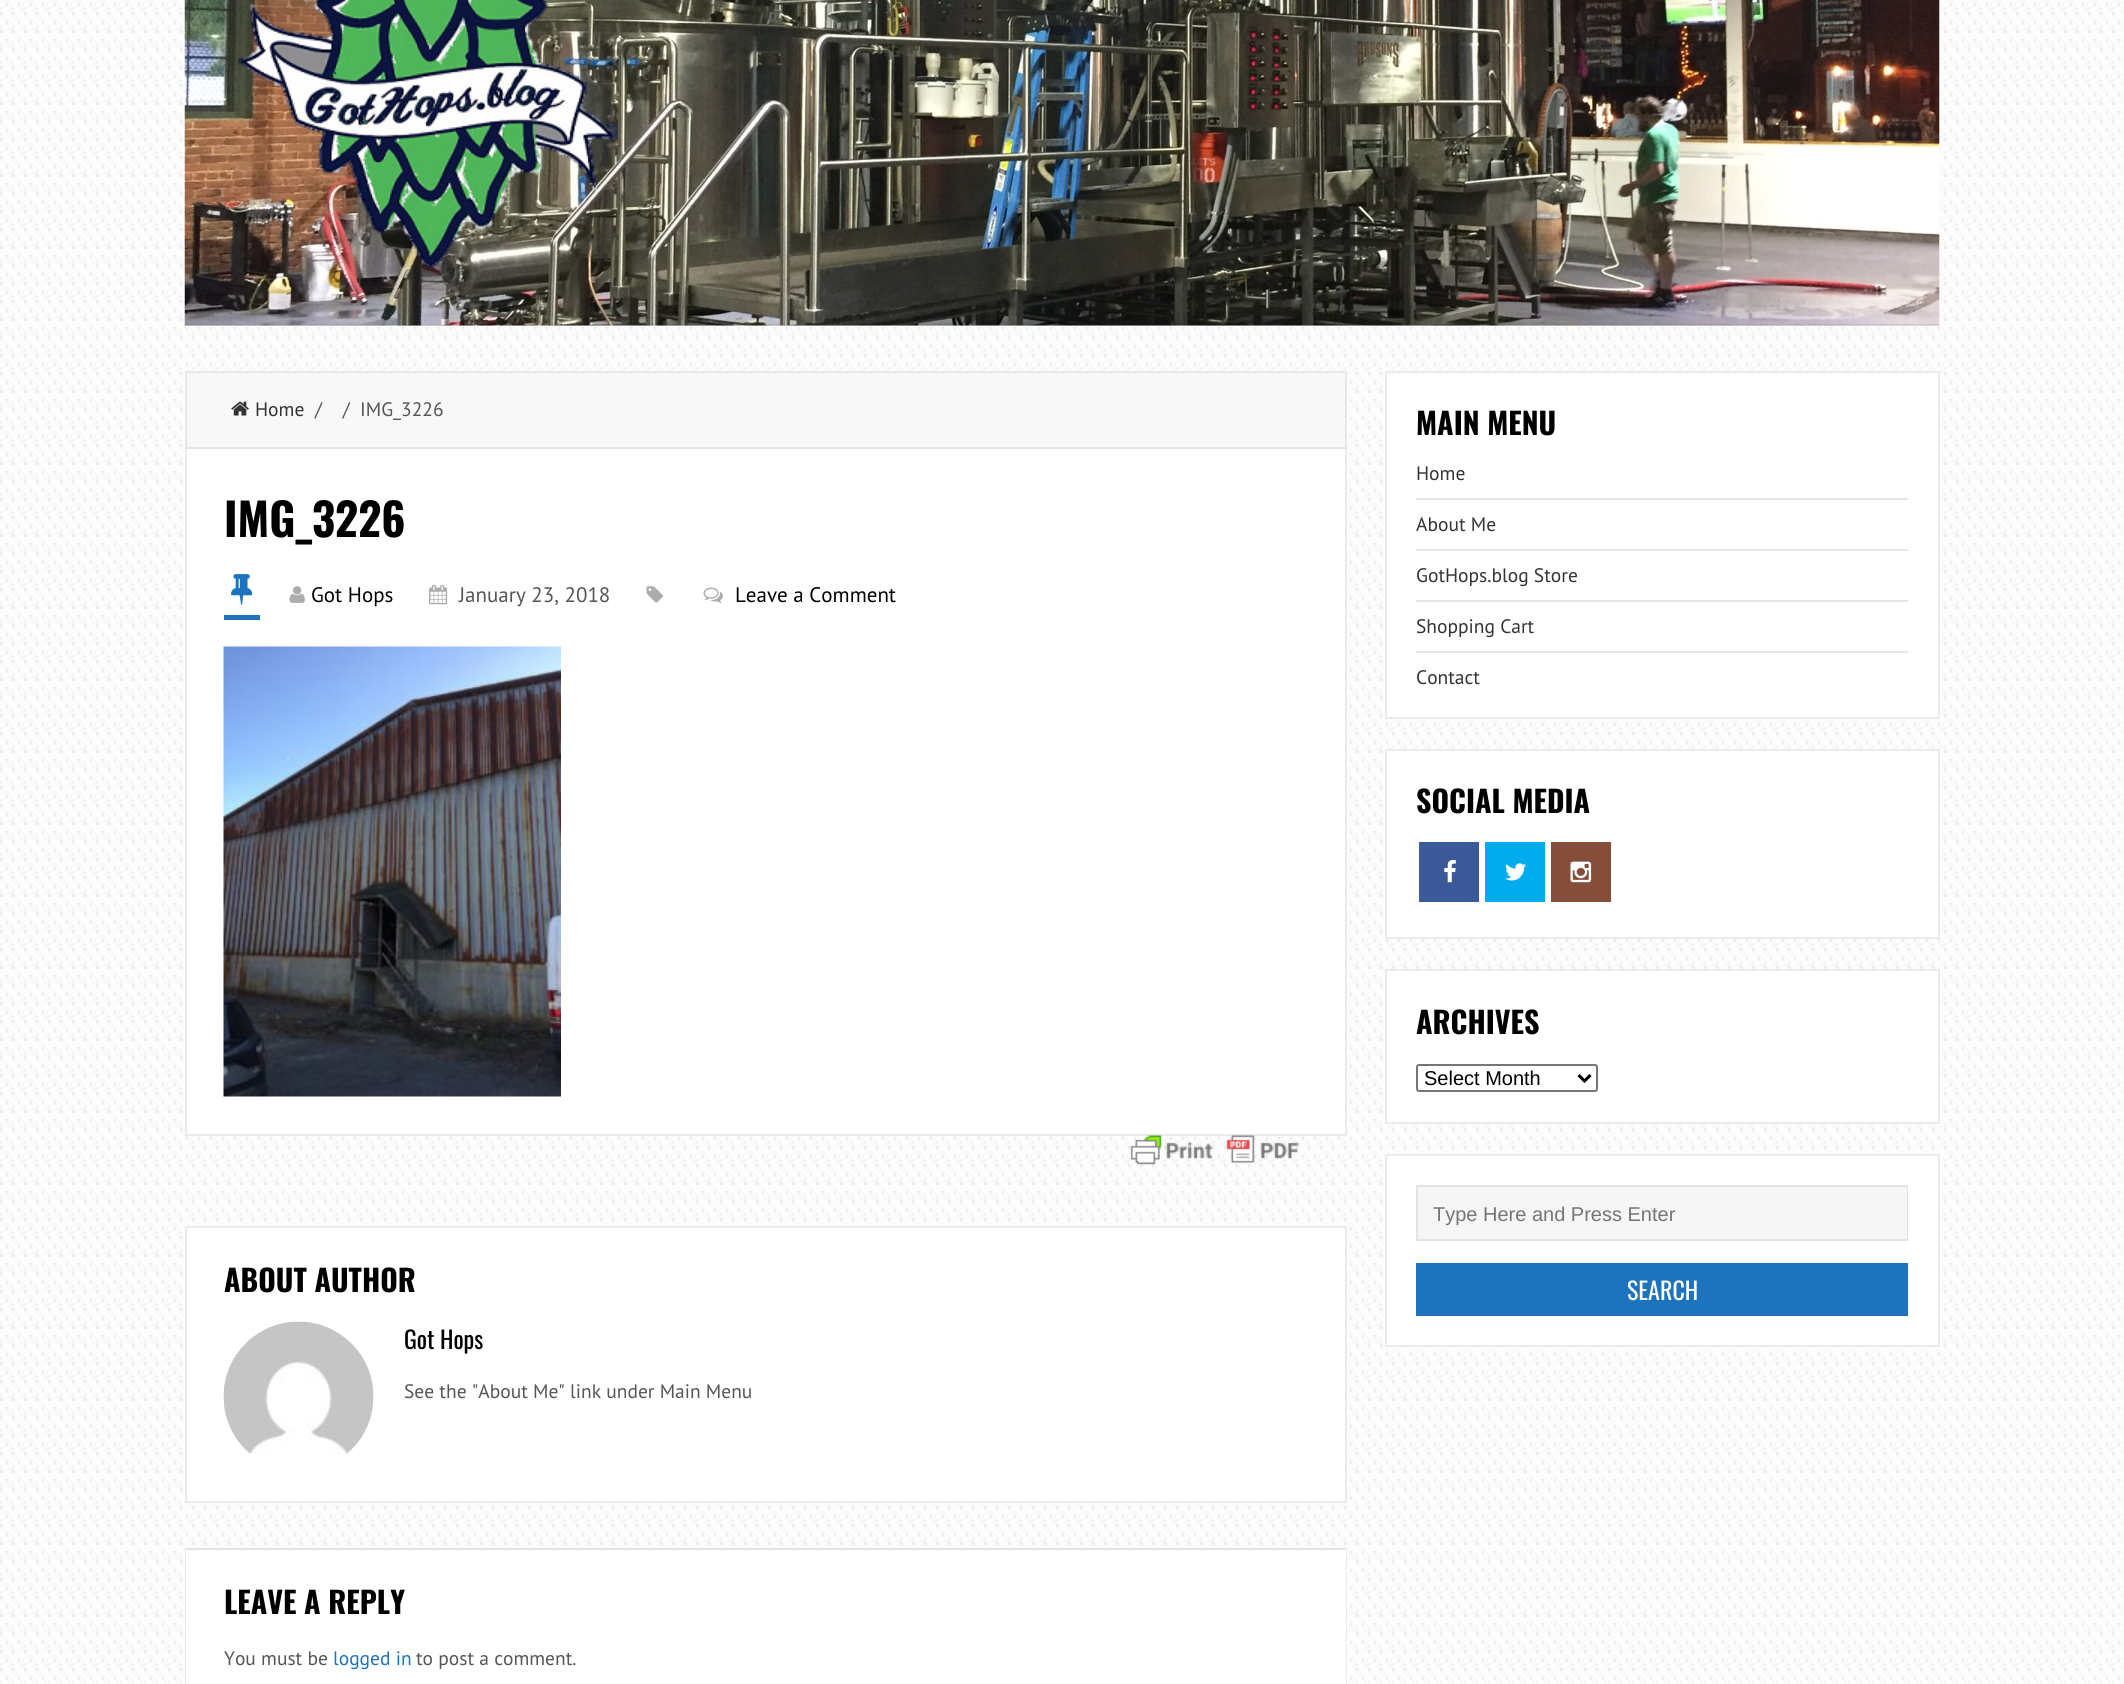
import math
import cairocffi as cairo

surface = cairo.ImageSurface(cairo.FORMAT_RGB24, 2124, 1684)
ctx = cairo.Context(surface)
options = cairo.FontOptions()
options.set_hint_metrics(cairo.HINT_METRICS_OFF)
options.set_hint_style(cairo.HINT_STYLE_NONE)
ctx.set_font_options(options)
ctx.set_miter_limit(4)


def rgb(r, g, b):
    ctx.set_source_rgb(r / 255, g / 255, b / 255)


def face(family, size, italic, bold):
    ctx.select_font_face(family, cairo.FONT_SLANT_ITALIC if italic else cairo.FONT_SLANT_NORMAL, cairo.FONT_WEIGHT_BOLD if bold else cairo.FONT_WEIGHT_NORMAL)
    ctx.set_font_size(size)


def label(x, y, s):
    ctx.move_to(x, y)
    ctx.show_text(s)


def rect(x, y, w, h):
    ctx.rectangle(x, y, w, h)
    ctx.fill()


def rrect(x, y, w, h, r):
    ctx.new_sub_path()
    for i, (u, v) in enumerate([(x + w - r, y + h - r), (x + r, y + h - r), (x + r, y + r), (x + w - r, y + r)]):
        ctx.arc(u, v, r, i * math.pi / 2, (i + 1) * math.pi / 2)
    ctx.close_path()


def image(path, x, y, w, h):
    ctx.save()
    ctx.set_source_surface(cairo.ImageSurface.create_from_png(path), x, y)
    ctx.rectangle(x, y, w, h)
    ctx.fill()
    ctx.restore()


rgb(255, 255, 255)
ctx.paint()
image('image0.png', 0, 0, 2124, 1684)
image('image1.png', 184, 0, 1756, 326)
ctx.set_source_rgba(0, 0, 0, 0.08)
rect(185, 324, 1755, 2)
image('image2.png', 238, 0, 380, 269)
rgb(255, 255, 255)
ctx.rectangle(186, 372, 1160, 763)
ctx.fill_preserve()
rgb(235, 235, 235)
ctx.stroke()
ctx.set_source_rgba(0, 0, 0, 0.03)
rect(186, 372, 1160, 77)
ctx.set_source_rgba(0, 0, 0, 0.08)
rect(186, 447, 1160, 2)
image('image3.png', 231, 401, 18, 15)
face('PT Sans', 19.5, 0, 0)
rgb(51, 51, 51)
label(255, 416, 'Home')
rgb(85, 85, 85)
label(315, 416, '/    /  IMG_3226')
face('Oswald', 45, 0, 1)
rgb(0, 0, 0)
label(224, 537, 'IMG_3226')
rgb(30, 115, 190)
rect(224, 615, 36, 5)
image('image4.png', 231, 574, 22, 31)
image('image5.png', 289, 586, 16, 17)
face('PT Sans', 21, 0, 0)
rgb(0, 0, 0)
label(311, 602, 'Got Hops')
image('image6.png', 429, 584, 19, 21)
rgb(85, 85, 85)
label(459, 602, 'January 23, 2018')
image('image7.png', 646, 586, 17, 17)
image('image8.png', 703, 587, 20, 16)
rgb(0, 0, 0)
label(735, 602, 'Leave a Comment')
image('image9.png', 223, 646, 338, 451)
image('image10.png', 1130, 1135, 170, 30)
rgb(255, 255, 255)
ctx.rectangle(186, 1227, 1160, 275)
ctx.fill_preserve()
rgb(235, 235, 235)
ctx.stroke()
face('Oswald', 30, 0, 1)
rgb(0, 0, 0)
label(224, 1292, 'ABOUT AUTHOR')
image('image11.png', 223, 1321, 151, 133)
face('Oswald', 24, 0, 0)
label(404, 1349, 'Got Hops')
face('PT Sans', 19.5, 0, 0)
rgb(85, 85, 85)
label(404, 1398, 'See the "About Me" link under Main Menu')
rgb(255, 255, 255)
rect(185, 1548, 1162, 136)
rgb(227, 227, 227)
ctx.new_path()
ctx.move_to(184, 1548)
ctx.line_to(1347, 1548)
ctx.line_to(1346, 1550)
ctx.line_to(186, 1550)
ctx.close_path()
ctx.fill()
ctx.set_source_rgba(0, 0, 0, 0.08)
ctx.new_path()
ctx.move_to(1347, 1548)
ctx.line_to(1347, 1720)
ctx.line_to(1346, 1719)
ctx.line_to(1346, 1550)
ctx.close_path()
ctx.fill()
ctx.save()
ctx.rectangle(185, 0, 1755, 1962)
ctx.clip()
ctx.new_path()
ctx.move_to(184, 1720)
ctx.line_to(184, 1548)
ctx.line_to(186, 1550)
ctx.line_to(186, 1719)
ctx.close_path()
ctx.fill()
ctx.restore()
face('Oswald', 30, 0, 1)
rgb(0, 0, 0)
label(224, 1614, 'LEAVE A REPLY')
face('PT Sans', 19.5, 0, 0)
rgb(85, 85, 85)
label(224, 1665, 'You must be')
rgb(30, 115, 190)
label(333, 1665, 'logged in')
rgb(85, 85, 85)
label(416, 1665, 'to post a comment.')
rgb(255, 255, 255)
ctx.rectangle(1386, 372, 553, 346)
ctx.fill_preserve()
rgb(235, 235, 235)
ctx.stroke()
face('Oswald', 30, 0, 1)
rgb(0, 0, 0)
label(1416, 435, 'MAIN MENU')
rgb(230, 230, 230)
rect(1416, 498, 492, 2)
face('PT Sans', 19.5, 0, 0)
rgb(51, 51, 51)
label(1416, 480, 'Home')
rgb(230, 230, 230)
rect(1416, 549, 492, 2)
rgb(51, 51, 51)
label(1416, 531, 'About Me')
rgb(230, 230, 230)
rect(1416, 600, 492, 2)
rgb(51, 51, 51)
label(1416, 582, 'GotHops.blog Store')
rgb(230, 230, 230)
rect(1416, 651, 492, 2)
rgb(51, 51, 51)
label(1416, 633, 'Shopping Cart')
label(1416, 684, 'Contact')
rgb(255, 255, 255)
ctx.rectangle(1386, 750, 553, 188)
ctx.fill_preserve()
rgb(235, 235, 235)
ctx.stroke()
face('Oswald', 30, 0, 1)
rgb(0, 0, 0)
label(1416, 813, 'SOCIAL MEDIA')
rgb(59, 89, 153)
rect(1419, 842, 60, 60)
image('image12.png', 1444, 859, 12, 24)
rgb(0, 172, 237)
rect(1485, 842, 60, 60)
image('image13.png', 1505, 863, 21, 18)
rgb(133, 78, 58)
rect(1551, 842, 60, 60)
image('image14.png', 1570, 861, 22, 22)
rgb(255, 255, 255)
ctx.rectangle(1386, 970, 553, 153)
ctx.fill_preserve()
rgb(235, 235, 235)
ctx.stroke()
rgb(0, 0, 0)
label(1416, 1034, 'ARCHIVES')
rrect(1417, 1065, 180, 26, 2)
rgb(118, 118, 118)
ctx.stroke()
ctx.new_path()
ctx.move_to(1578.5, 1075)
ctx.line_to(1584.5, 1081)
ctx.line_to(1590.5, 1075)
rgb(0, 0, 0)
ctx.set_line_width(3)
ctx.stroke()
face('Liberation Sans', 20, 0, 0)
label(1424, 1085, 'Select Month')
rgb(255, 255, 255)
ctx.rectangle(1386, 1155, 553, 191)
ctx.fill_preserve()
rgb(235, 235, 235)
ctx.set_line_width(2)
ctx.stroke()
ctx.rectangle(1417, 1186, 490, 54)
rgb(227, 227, 227)
ctx.stroke()
rgb(246, 246, 246)
rect(1418, 1187, 489, 52)
rgb(117, 117, 117)
label(1433, 1221, 'Type Here and Press Enter')
rgb(30, 115, 190)
rect(1416, 1263, 492, 53)
face('Oswald', 24, 0, 0)
rgb(255, 255, 255)
label(1627, 1300, 'SEARCH')
surface.write_to_png('render.png')
